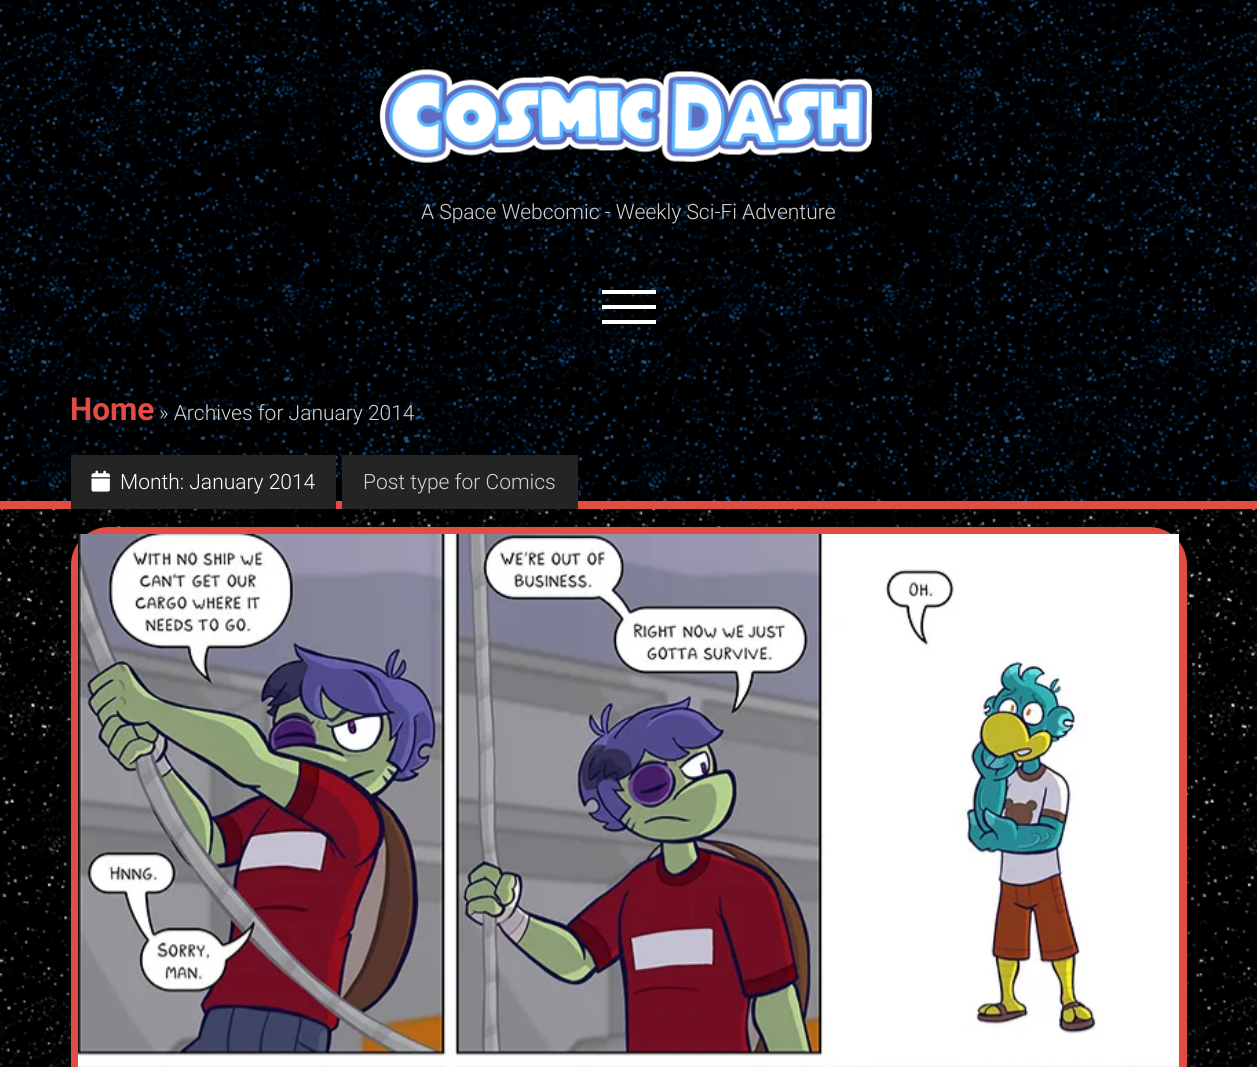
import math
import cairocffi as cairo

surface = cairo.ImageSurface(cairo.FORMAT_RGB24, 1257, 1067)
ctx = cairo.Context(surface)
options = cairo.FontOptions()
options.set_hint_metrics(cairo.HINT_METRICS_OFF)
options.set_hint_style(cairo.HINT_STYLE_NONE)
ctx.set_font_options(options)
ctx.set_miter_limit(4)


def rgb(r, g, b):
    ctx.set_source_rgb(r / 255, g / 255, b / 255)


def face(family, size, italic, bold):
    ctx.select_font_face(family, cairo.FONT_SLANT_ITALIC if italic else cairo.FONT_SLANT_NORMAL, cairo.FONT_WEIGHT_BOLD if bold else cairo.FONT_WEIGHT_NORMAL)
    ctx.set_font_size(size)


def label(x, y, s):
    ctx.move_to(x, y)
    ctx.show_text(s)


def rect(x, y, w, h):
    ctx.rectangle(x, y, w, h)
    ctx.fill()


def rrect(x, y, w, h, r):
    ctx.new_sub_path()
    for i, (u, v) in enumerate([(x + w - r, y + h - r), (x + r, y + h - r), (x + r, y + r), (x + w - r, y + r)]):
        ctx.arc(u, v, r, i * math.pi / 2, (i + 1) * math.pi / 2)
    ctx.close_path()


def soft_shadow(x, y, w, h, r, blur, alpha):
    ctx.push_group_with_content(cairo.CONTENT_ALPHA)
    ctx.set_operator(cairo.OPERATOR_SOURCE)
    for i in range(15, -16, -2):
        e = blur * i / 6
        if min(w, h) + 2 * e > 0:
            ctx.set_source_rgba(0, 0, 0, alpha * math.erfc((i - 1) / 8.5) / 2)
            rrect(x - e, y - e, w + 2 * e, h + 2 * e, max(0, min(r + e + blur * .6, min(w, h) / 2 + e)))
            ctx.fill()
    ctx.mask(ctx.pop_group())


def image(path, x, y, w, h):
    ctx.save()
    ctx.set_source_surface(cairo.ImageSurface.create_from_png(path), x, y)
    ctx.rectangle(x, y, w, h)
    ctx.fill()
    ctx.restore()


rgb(255, 255, 255)
ctx.paint()
image('image0.png', 0, 509, 1257, 558)
image('image1.png', 0, 0, 1257, 501)
rgb(225, 77, 67)
rect(0, 501, 1257, 8)
image('image2.png', 378, 67, 496, 98)
face('Roboto Light', 21, 0, 0)
rgb(212, 212, 212)
label(421, 219, 'A Space Webcomic - Weekly Sci-Fi Adventure')
rgb(255, 255, 255)
rect(602, 290, 54, 4)
rect(602, 305, 54, 4)
rect(602, 320, 54, 4)
face('Roboto', 31.5, 0, 1)
rgb(225, 77, 67)
label(70, 420, 'Home')
face('Roboto Light', 21, 0, 0)
rgb(212, 212, 212)
label(159, 420, '» Archives for January 2014')
rgb(36, 36, 36)
rect(71, 455, 265, 54)
image('image3.png', 91, 470, 19, 22)
rgb(255, 255, 255)
label(120, 489, 'Month: January 2014')
rgb(36, 36, 36)
rect(342, 455, 236, 54)
rgb(212, 212, 212)
label(363, 489, 'Post type for Comics')
rgb(58, 58, 58)
soft_shadow(71, 527, 1116, 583, 38, 1.5, 0.2)
rrect(75, 531, 1108, 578, 34)
rgb(225, 77, 67)
ctx.set_line_width(8)
ctx.stroke()
image('image4.png', 78, 534, 1101, 533)
surface.write_to_png('render.png')
